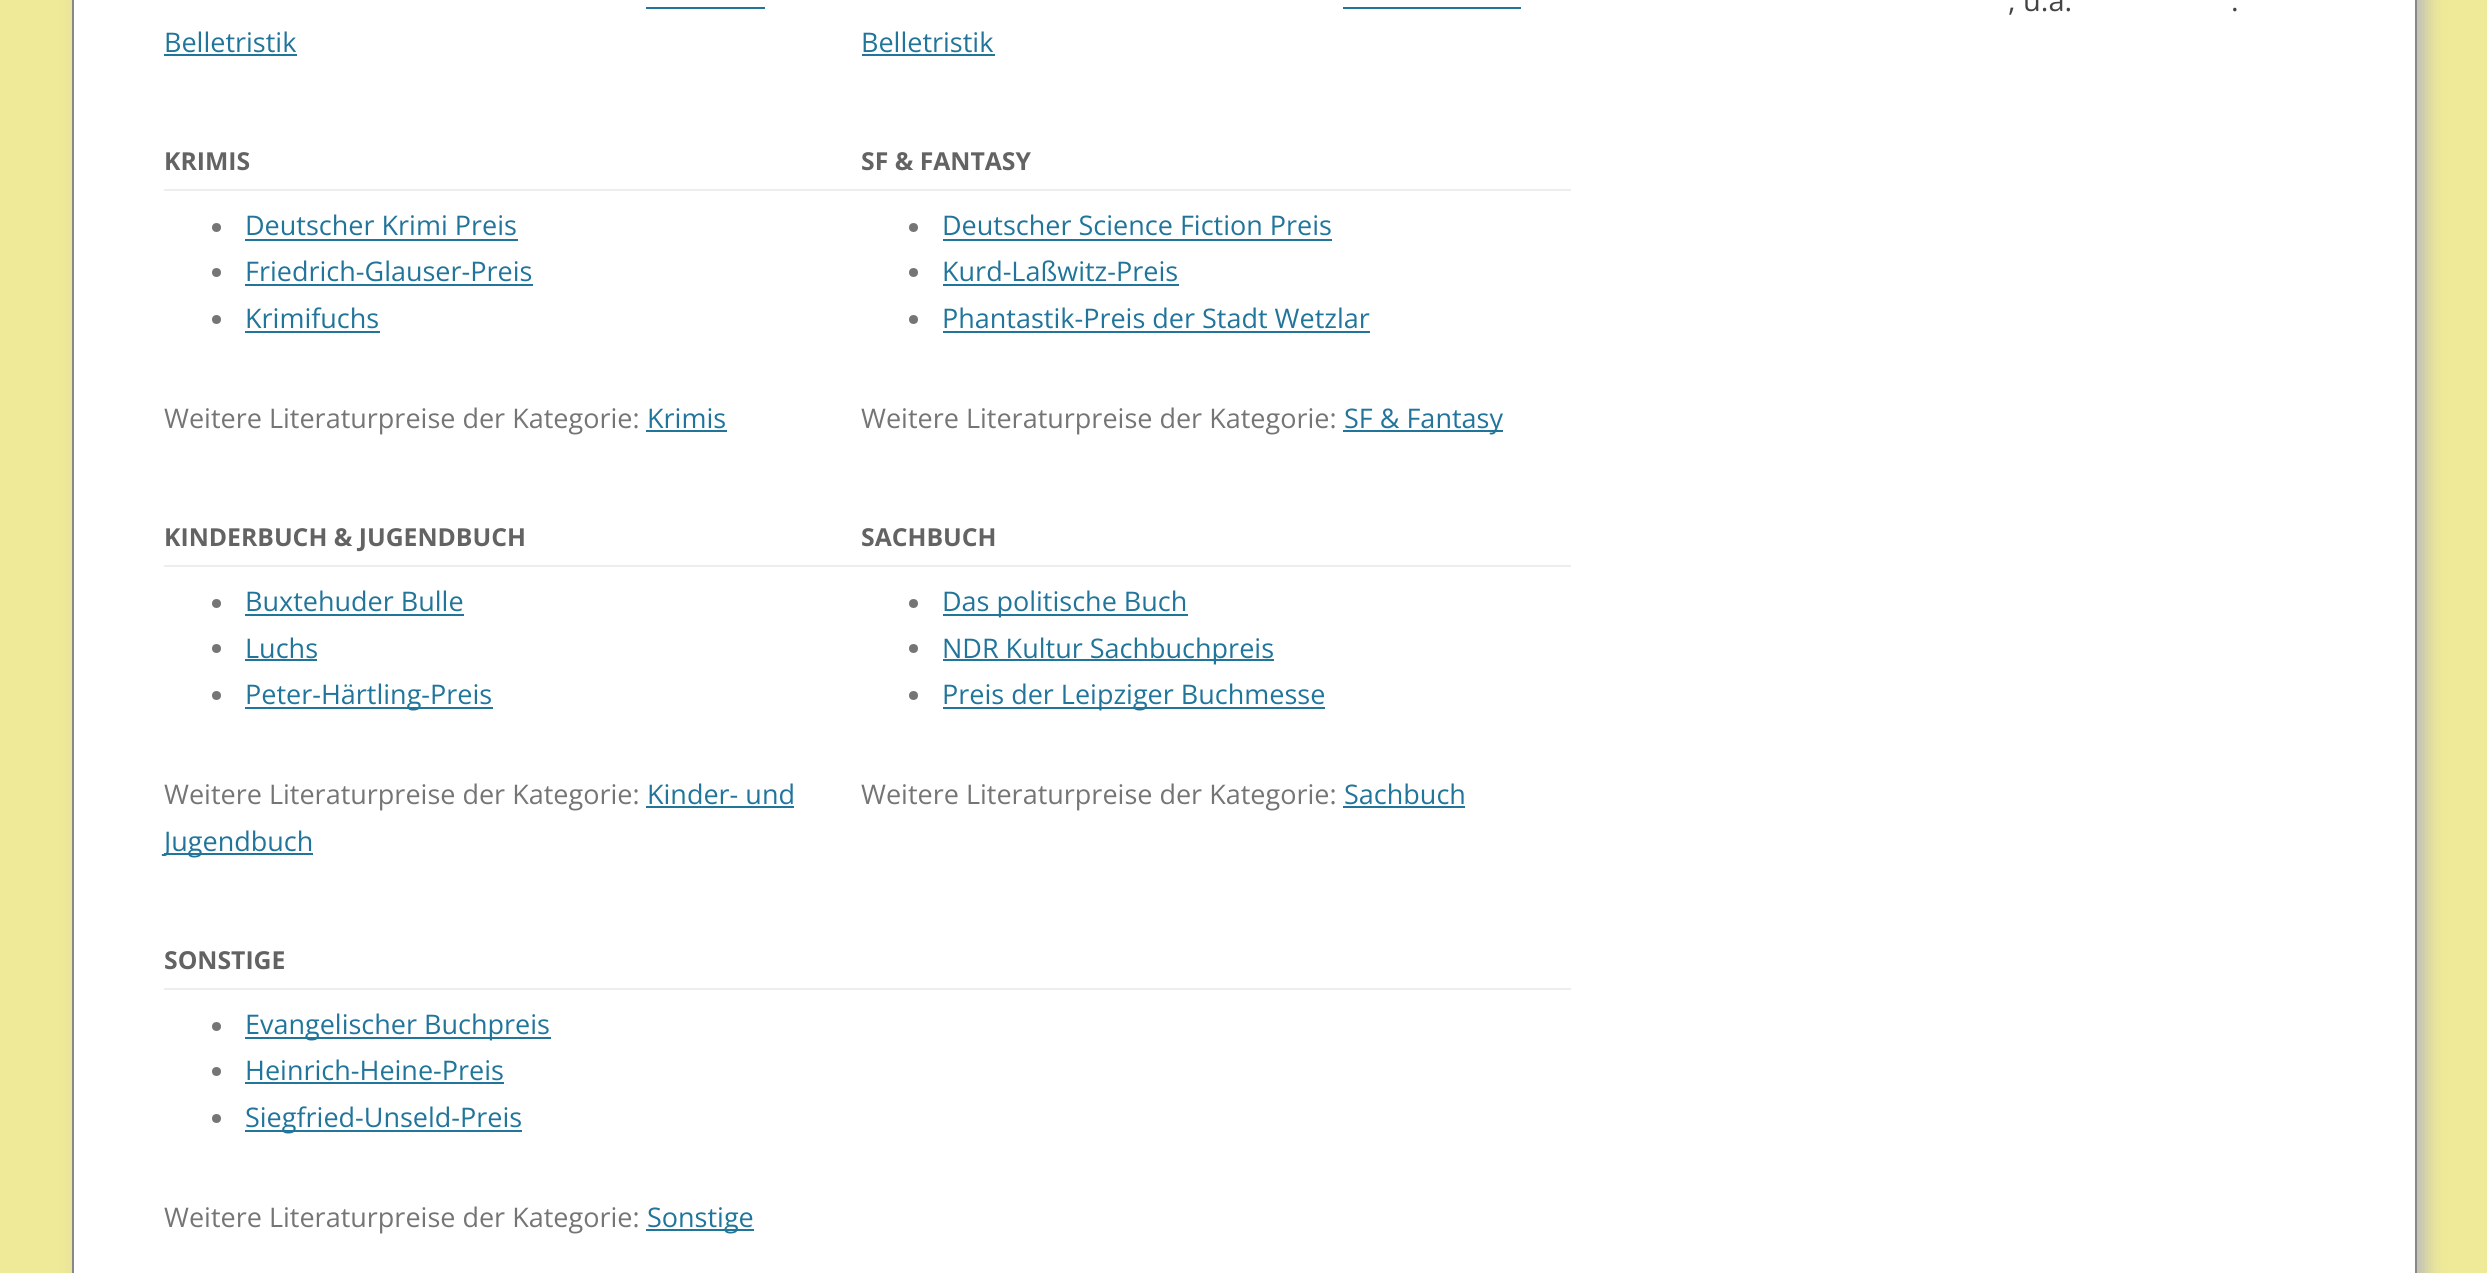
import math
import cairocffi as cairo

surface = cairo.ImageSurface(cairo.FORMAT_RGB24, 2487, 1273)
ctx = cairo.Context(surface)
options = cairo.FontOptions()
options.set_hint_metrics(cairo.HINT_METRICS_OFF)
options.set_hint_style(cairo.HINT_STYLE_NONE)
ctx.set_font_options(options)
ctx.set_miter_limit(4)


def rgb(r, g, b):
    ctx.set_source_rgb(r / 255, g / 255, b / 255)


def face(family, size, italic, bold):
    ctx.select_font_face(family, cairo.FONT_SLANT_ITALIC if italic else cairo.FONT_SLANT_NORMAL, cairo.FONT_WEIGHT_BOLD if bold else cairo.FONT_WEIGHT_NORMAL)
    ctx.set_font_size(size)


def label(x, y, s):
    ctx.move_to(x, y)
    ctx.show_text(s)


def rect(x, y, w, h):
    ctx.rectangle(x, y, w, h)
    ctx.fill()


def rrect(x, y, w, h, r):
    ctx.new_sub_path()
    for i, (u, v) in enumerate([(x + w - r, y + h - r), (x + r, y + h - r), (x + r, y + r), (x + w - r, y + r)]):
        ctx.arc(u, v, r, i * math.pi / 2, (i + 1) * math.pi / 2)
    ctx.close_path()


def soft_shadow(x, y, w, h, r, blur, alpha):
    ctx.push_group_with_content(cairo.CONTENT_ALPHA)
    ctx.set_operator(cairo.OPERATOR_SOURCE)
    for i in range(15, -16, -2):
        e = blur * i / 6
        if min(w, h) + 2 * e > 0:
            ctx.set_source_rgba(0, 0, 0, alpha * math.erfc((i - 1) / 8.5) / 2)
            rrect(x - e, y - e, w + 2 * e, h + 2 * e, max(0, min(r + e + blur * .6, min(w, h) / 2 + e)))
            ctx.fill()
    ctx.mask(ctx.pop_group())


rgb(239, 234, 151)
ctx.paint()
rgb(187, 187, 187)
soft_shadow(81, -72, 2345, 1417, 45, 9, 1)
rgb(255, 255, 255)
ctx.rectangle(73, -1, 2343, 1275)
ctx.fill_preserve()
rgb(136, 136, 136)
ctx.stroke()
face('Open Sans', 29, 0, 0)
rgb(68, 68, 68)
label(2008, 11, ', u.a.')
label(2231, 11, '.')
face('Open Sans', 27, 0, 0)
rgb(33, 117, 155)
label(164, 52, 'Belletristik')
rect(646, 7, 119, 2)
rect(164, 54, 133, 2)
label(861, 52, 'Belletristik')
rect(1343, 7, 178, 2)
rect(862, 54, 133, 2)
face('Open Sans', 24.75, 0, 1)
rgb(99, 99, 99)
label(164, 170, 'KRIMIS')
label(861, 170, 'SF & FANTASY')
rgb(117, 117, 117)
ctx.new_path()
ctx.arc(216.5, 227.5, 4.5, 0, 2 * math.pi)
ctx.fill()
face('Open Sans', 27, 0, 0)
rgb(33, 117, 155)
label(245, 235, 'Deutscher Krimi Preis')
rect(245, 239, 273, 2)
rgb(117, 117, 117)
ctx.new_path()
ctx.arc(216.5, 272.5, 4.5, 0, 2 * math.pi)
ctx.fill()
rgb(33, 117, 155)
label(245, 281, 'Friedrich-Glauser-Preis')
rect(245, 284, 288, 2)
rgb(117, 117, 117)
ctx.new_path()
ctx.arc(216.5, 319.5, 4.5, 0, 2 * math.pi)
ctx.fill()
rgb(33, 117, 155)
label(245, 328, 'Krimifuchs')
rect(245, 331, 135, 2)
rgb(117, 117, 117)
label(164, 428, 'Weitere Literaturpreise der Kategorie:')
rgb(33, 117, 155)
label(647, 428, 'Krimis')
rect(646, 430, 81, 2)
rgb(237, 237, 237)
rect(164, 189, 1407, 2)
rgb(117, 117, 117)
ctx.new_path()
ctx.arc(913.5, 227.5, 4.5, 0, 2 * math.pi)
ctx.fill()
rgb(33, 117, 155)
label(942, 235, 'Deutscher Science Fiction Preis')
rect(943, 239, 389, 2)
rgb(117, 117, 117)
ctx.new_path()
ctx.arc(913.5, 272.5, 4.5, 0, 2 * math.pi)
ctx.fill()
rgb(33, 117, 155)
label(942, 281, 'Kurd-Laßwitz-Preis')
rect(943, 284, 236, 2)
rgb(117, 117, 117)
ctx.new_path()
ctx.arc(913.5, 319.5, 4.5, 0, 2 * math.pi)
ctx.fill()
rgb(33, 117, 155)
label(942, 328, 'Phantastik-Preis der Stadt Wetzlar')
rect(943, 331, 427, 2)
rgb(117, 117, 117)
label(861, 428, 'Weitere Literaturpreise der Kategorie:')
rgb(33, 117, 155)
rect(1343, 430, 160, 2)
label(1344, 428, 'SF & Fantasy')
face('Open Sans', 24.75, 0, 1)
rgb(99, 99, 99)
label(164, 546, 'KINDERBUCH & JUGENDBUCH')
label(861, 546, 'SACHBUCH')
rgb(117, 117, 117)
ctx.new_path()
ctx.arc(216.5, 603.5, 4.5, 0, 2 * math.pi)
ctx.fill()
face('Open Sans', 27, 0, 0)
rgb(33, 117, 155)
label(245, 611, 'Buxtehuder Bulle')
rect(245, 614, 219, 2)
rgb(117, 117, 117)
ctx.new_path()
ctx.arc(216.5, 648.5, 4.5, 0, 2 * math.pi)
ctx.fill()
rgb(33, 117, 155)
label(245, 658, 'Luchs')
rect(245, 659, 72, 2)
rgb(117, 117, 117)
ctx.new_path()
ctx.arc(216.5, 695.5, 4.5, 0, 2 * math.pi)
ctx.fill()
rgb(33, 117, 155)
rect(245, 707, 248, 2)
label(245, 704, 'Peter-Härtling-Preis')
rgb(117, 117, 117)
label(164, 804, 'Weitere Literaturpreise der Kategorie:')
rgb(33, 117, 155)
label(647, 804, 'Kinder- und')
rect(646, 806, 148, 2)
rect(164, 853, 149, 2)
label(164, 851, 'Jugendbuch')
rgb(237, 237, 237)
rect(164, 565, 1407, 2)
rgb(117, 117, 117)
ctx.new_path()
ctx.arc(913.5, 603.5, 4.5, 0, 2 * math.pi)
ctx.fill()
rgb(33, 117, 155)
rect(943, 614, 245, 2)
label(942, 611, 'Das politische Buch')
rgb(117, 117, 117)
ctx.new_path()
ctx.arc(913.5, 648.5, 4.5, 0, 2 * math.pi)
ctx.fill()
rgb(33, 117, 155)
rect(943, 659, 331, 2)
label(942, 658, 'NDR Kultur Sachbuchpreis')
rgb(117, 117, 117)
ctx.new_path()
ctx.arc(913.5, 695.5, 4.5, 0, 2 * math.pi)
ctx.fill()
rgb(33, 117, 155)
rect(943, 707, 382, 2)
label(942, 704, 'Preis der Leipziger Buchmesse')
rgb(117, 117, 117)
label(861, 804, 'Weitere Literaturpreise der Kategorie:')
rgb(33, 117, 155)
label(1344, 804, 'Sachbuch')
rect(1343, 806, 122, 2)
face('Open Sans', 24.75, 0, 1)
rgb(99, 99, 99)
label(164, 969, 'SONSTIGE')
rgb(237, 237, 237)
rect(164, 988, 1407, 2)
rgb(117, 117, 117)
ctx.new_path()
ctx.arc(216.5, 1026.5, 4.5, 0, 2 * math.pi)
ctx.fill()
rgb(33, 117, 155)
rect(245, 1037, 306, 2)
face('Open Sans', 27, 0, 0)
label(245, 1034, 'Evangelischer Buchpreis')
rgb(117, 117, 117)
ctx.new_path()
ctx.arc(216.5, 1071.5, 4.5, 0, 2 * math.pi)
ctx.fill()
rgb(33, 117, 155)
label(245, 1080, 'Heinrich-Heine-Preis')
rect(245, 1082, 259, 2)
rgb(117, 117, 117)
ctx.new_path()
ctx.arc(216.5, 1118.5, 4.5, 0, 2 * math.pi)
ctx.fill()
rgb(33, 117, 155)
rect(245, 1130, 277, 2)
label(245, 1127, 'Siegfried-Unseld-Preis')
rgb(117, 117, 117)
label(164, 1227, 'Weitere Literaturpreise der Kategorie:')
rgb(33, 117, 155)
rect(646, 1229, 108, 2)
label(647, 1227, 'Sonstige')
surface.write_to_png('render.png')
